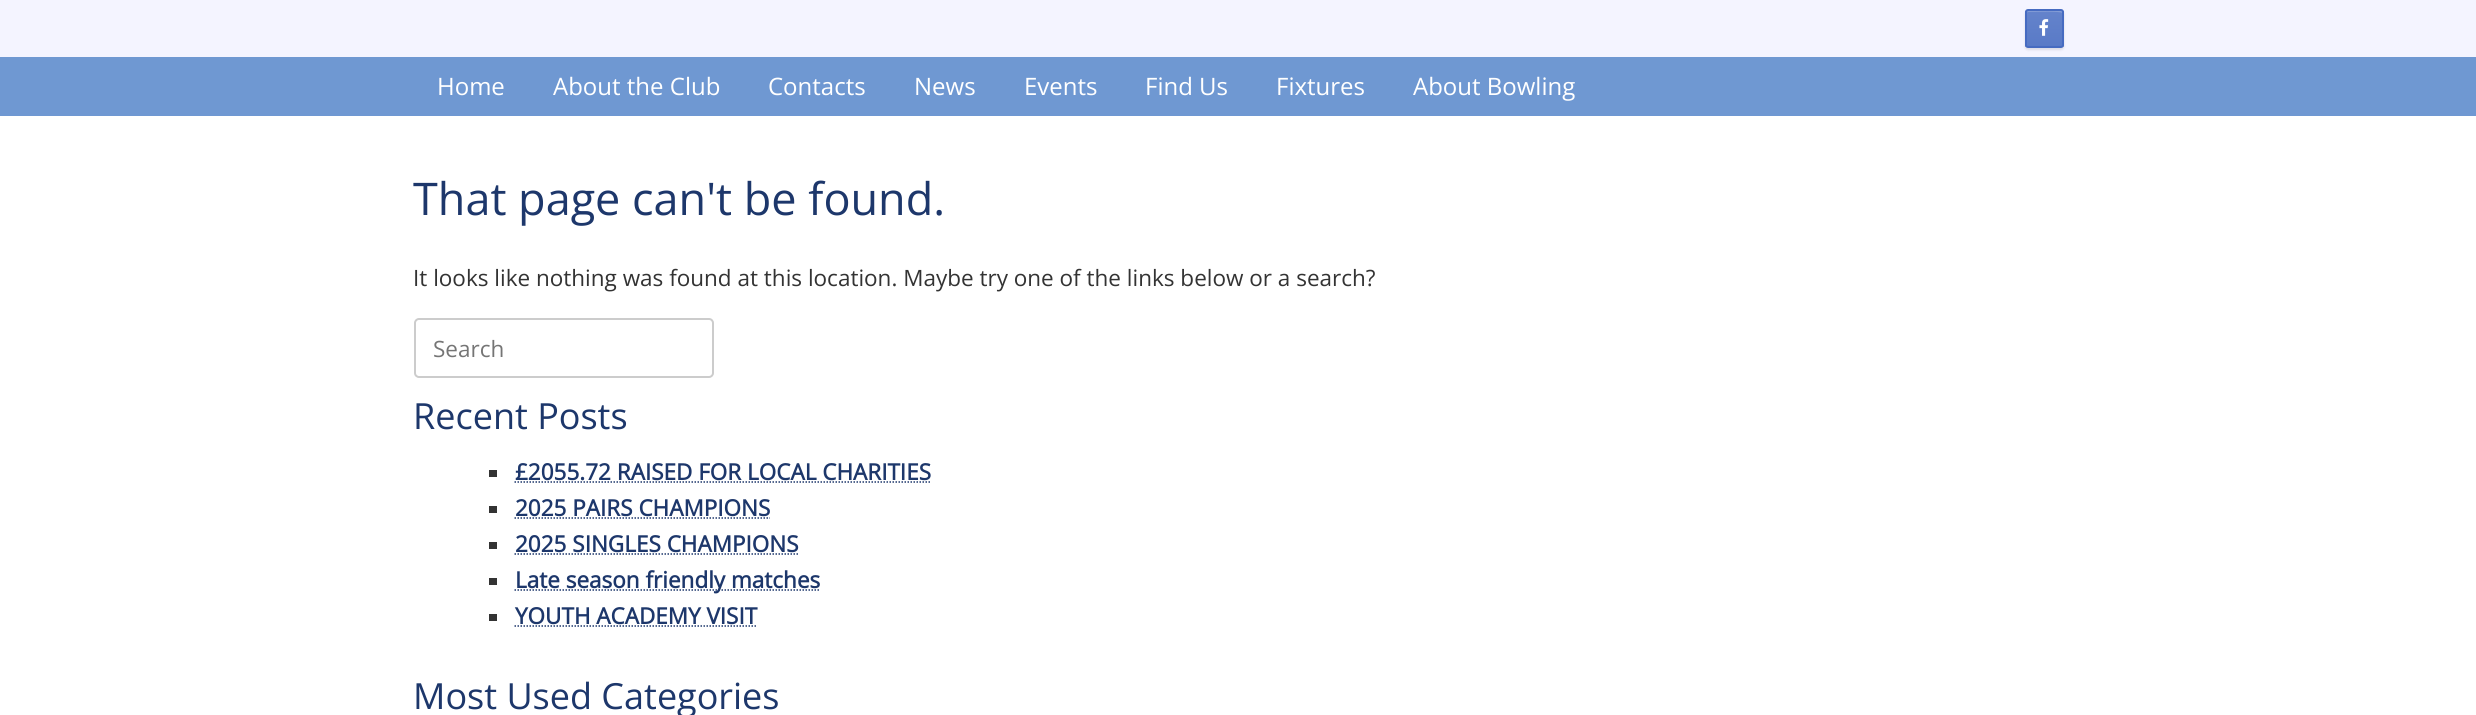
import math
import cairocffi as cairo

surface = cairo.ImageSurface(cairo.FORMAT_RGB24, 2476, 715)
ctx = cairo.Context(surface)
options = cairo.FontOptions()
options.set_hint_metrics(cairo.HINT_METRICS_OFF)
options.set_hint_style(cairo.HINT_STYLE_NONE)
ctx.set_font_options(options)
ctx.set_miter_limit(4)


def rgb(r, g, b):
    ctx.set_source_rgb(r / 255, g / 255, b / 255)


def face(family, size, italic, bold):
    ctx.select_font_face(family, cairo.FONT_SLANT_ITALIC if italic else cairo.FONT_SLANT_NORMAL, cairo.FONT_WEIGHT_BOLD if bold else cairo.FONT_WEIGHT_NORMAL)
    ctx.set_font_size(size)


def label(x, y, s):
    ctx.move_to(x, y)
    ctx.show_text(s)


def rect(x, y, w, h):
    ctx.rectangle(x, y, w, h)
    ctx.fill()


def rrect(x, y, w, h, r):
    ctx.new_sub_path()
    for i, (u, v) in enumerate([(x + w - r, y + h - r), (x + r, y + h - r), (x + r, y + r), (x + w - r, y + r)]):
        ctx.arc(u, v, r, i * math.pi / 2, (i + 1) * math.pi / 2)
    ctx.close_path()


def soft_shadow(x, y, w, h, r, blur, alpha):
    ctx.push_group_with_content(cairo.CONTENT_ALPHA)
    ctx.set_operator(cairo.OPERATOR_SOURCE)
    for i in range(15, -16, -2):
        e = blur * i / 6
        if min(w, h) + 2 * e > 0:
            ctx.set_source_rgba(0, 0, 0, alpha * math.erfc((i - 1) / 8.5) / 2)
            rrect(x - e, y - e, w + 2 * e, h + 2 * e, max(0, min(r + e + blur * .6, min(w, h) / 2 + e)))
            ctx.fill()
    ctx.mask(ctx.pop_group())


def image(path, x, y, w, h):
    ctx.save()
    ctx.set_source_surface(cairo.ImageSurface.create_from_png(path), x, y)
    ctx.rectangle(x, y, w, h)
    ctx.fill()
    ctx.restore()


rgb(244, 244, 255)
ctx.paint()
rgb(0, 0, 0)
soft_shadow(2025, 11, 39, 39, 3, 1, 0.1)
ctx.save()
rrect(2025, 9, 39, 39, 3)
ctx.clip()
gradient = cairo.LinearGradient(2045, 47, 2045, 11)
gradient.add_color_stop_rgba(0, 0.349, 0.478, 0.78, 1)
gradient.add_color_stop_rgba(1, 0.392, 0.514, 0.796, 1)
ctx.set_source(gradient)
rect(2025, 11, 39, 36)
ctx.restore()
ctx.set_source_rgba(1, 1, 1, 0.2)
ctx.new_path()
ctx.move_to(2028, 12)
ctx.curve_to(2034.5, 12, 2061.5, 11, 2062, 13)
ctx.line_to(2062.5, 39)
ctx.curve_to(2062.5, 41.5, 2063, 44.5, 2062, 47)
ctx.curve_to(2062.5, 46.5, 2063, 46, 2063, 45.5)
ctx.line_to(2063, 12.5)
ctx.curve_to(2063, 11.5, 2062.5, 11, 2061.5, 11)
ctx.line_to(2028.5, 11)
ctx.curve_to(2027.5, 11, 2027, 11.5, 2027, 12.5)
ctx.close_path()
ctx.fill()
rrect(2026, 10, 37, 37, 2)
rgb(70, 107, 193)
ctx.stroke()
image('image0.png', 2039, 19, 10, 17)
rgb(111, 152, 210)
rect(0, 57, 2476, 59)
face('Open Sans', 24, 0, 0)
rgb(255, 255, 255)
label(437, 95, 'Home')
label(553, 95, 'About the Club')
label(768, 95, 'Contacts')
label(914, 95, 'News')
label(1024, 95, 'Events')
label(1145, 95, 'Find Us')
label(1276, 95, 'Fixtures')
label(1413, 95, 'About Bowling')
rect(0, 116, 2476, 599)
face('Open Sans', 45, 0, 0)
rgb(29, 55, 107)
label(413, 215, 'That page can\'t be found.')
face('Open Sans', 22.5, 0, 0)
rgb(51, 51, 51)
label(413, 286, 'It looks like nothing was found at this location. Maybe try one of the links below or a search?')
rrect(415, 319, 298, 58, 4)
rgb(204, 204, 204)
ctx.stroke()
rgb(117, 117, 117)
label(433, 357, 'Search')
face('Open Sans', 36, 0, 0)
rgb(29, 55, 107)
label(413, 429, 'Recent Posts')
rgb(51, 51, 51)
rect(489, 470, 8, 7)
face('Open Sans', 22.5, 0, 1)
rgb(29, 55, 107)
label(515, 480, '£2055.72 RAISED FOR LOCAL CHARITIES')
ctx.new_path()
ctx.move_to(514.5, 482)
ctx.line_to(930.5, 482)
ctx.set_line_width(1.5)
ctx.set_dash([1.5, 1.5])
ctx.stroke()
rgb(51, 51, 51)
rect(489, 506, 8, 7)
rgb(29, 55, 107)
label(515, 516, '2025 PAIRS CHAMPIONS')
ctx.new_path()
ctx.move_to(514.5, 518)
ctx.line_to(770, 518)
ctx.stroke()
rgb(51, 51, 51)
rect(489, 542, 8, 7)
rgb(29, 55, 107)
label(515, 552, '2025 SINGLES CHAMPIONS')
ctx.new_path()
ctx.move_to(514.5, 554)
ctx.line_to(798, 554)
ctx.stroke()
rgb(51, 51, 51)
rect(489, 578, 8, 7)
ctx.new_path()
ctx.move_to(514.5, 590)
ctx.line_to(820, 590)
rgb(29, 55, 107)
ctx.stroke()
label(515, 588, 'Late season friendly matches')
rgb(51, 51, 51)
rect(489, 614, 8, 7)
rgb(29, 55, 107)
label(515, 624, 'YOUTH ACADEMY VISIT')
ctx.new_path()
ctx.move_to(514.5, 626)
ctx.line_to(756.5, 626)
ctx.stroke()
face('Open Sans', 36, 0, 0)
label(413, 709, 'Most Used Categories')
surface.write_to_png('render.png')
